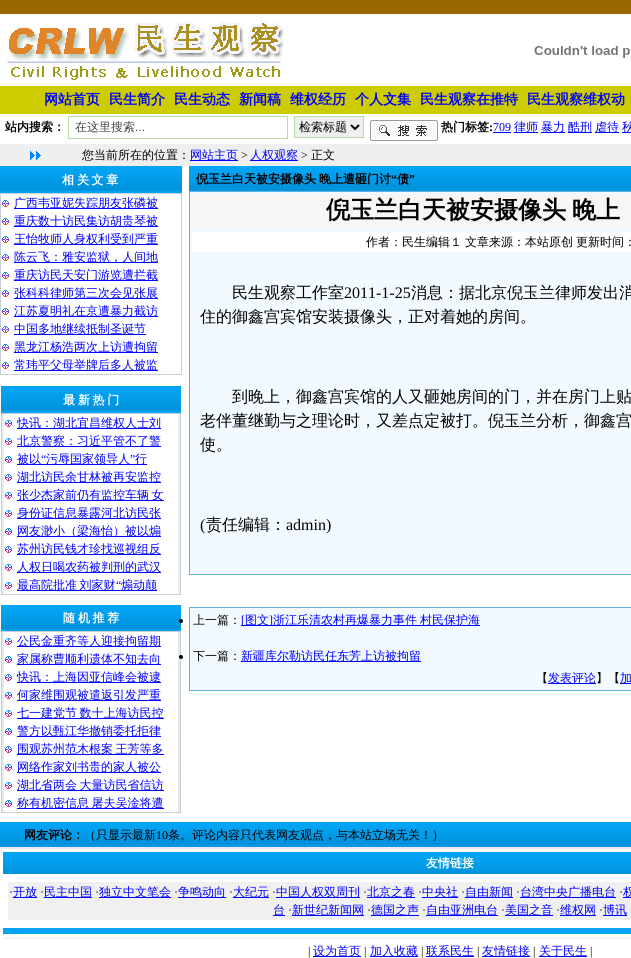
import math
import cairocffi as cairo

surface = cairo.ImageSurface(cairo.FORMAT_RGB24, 631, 958)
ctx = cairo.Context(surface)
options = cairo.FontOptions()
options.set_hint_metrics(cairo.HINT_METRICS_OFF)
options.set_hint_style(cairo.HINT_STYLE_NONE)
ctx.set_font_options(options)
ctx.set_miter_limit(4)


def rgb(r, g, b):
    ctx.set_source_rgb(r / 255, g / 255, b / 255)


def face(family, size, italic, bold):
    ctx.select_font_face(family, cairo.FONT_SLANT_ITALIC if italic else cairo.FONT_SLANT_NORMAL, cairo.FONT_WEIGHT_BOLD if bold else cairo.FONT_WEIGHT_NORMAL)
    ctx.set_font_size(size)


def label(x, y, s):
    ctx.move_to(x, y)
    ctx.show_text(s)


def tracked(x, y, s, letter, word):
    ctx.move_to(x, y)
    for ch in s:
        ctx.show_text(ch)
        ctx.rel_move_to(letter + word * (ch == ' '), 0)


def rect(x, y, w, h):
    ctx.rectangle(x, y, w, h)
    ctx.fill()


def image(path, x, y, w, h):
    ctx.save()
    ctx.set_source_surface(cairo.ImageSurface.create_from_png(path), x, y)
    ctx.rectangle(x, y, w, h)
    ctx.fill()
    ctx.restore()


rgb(255, 255, 255)
ctx.paint()
rgb(153, 102, 0)
rect(0, 0, 631, 14)
image('image0.png', 7, 20, 277, 60)
image('image1.png', 534, 46, 96, 12)
rgb(204, 204, 0)
rect(0, 86, 631, 28)
face('WenQuanYi Zen Hei', 14, 0, 1)
rgb(0, 0, 255)
label(44, 104, '网站首页')
label(109, 104, '民生简介')
label(174, 104, '民生动态')
label(239, 104, '新闻稿')
label(290, 104, '维权经历')
label(355, 104, '个人文集')
label(420, 104, '民生观察在推特')
label(527, 104, '民生观察维权动')
face('WenQuanYi Zen Hei', 12, 0, 1)
rgb(0, 0, 0)
label(5, 131, '站内搜索：')
ctx.rectangle(68.5, 116.5, 219, 22)
rgb(186, 218, 161)
ctx.set_line_width(1)
ctx.stroke()
face('WenQuanYi Zen Hei Medium', 12, 0, 0)
rgb(68, 68, 68)
label(75, 131, '在这里搜索')
face('Liberation Sans', 12, 0, 0)
label(135, 131, '...')
rgb(239, 239, 239)
ctx.rectangle(294.5, 116.5, 69, 21)
ctx.fill_preserve()
rgb(186, 218, 161)
ctx.stroke()
ctx.new_path()
ctx.move_to(351, 125)
ctx.line_to(355, 129)
ctx.line_to(359, 125)
rgb(0, 0, 0)
ctx.set_line_width(2)
ctx.stroke()
face('WenQuanYi Zen Hei Medium', 12, 0, 0)
label(299, 131, '检索标题')
image('image2.png', 370, 120, 68, 21)
face('WenQuanYi Zen Hei', 12, 0, 1)
label(441, 131, '热门标签')
face('Liberation Serif', 12, 0, 1)
label(489, 131, ':')
face('Liberation Serif', 12, 0, 0)
rgb(0, 0, 255)
label(493, 131, '709')
rect(493, 132, 18, 1)
rect(514, 132, 24, 1)
face('WenQuanYi Zen Hei Medium', 12, 0, 0)
label(514, 131, '律师')
rect(541, 132, 24, 1)
label(541, 131, '暴力')
rect(568, 132, 24, 1)
label(568, 131, '酷刑')
rect(595, 132, 24, 1)
label(595, 131, '虐待')
rect(622, 132, 9, 1)
label(622, 131, '秋')
rgb(239, 239, 239)
rect(0, 144, 631, 22)
image('image3.png', 30, 151, 11, 9)
rgb(0, 0, 0)
label(82, 159, '您当前所在的位置：')
rgb(0, 0, 255)
rect(190, 160, 48, 1)
label(190, 159, '网站主页')
face('Liberation Serif', 12, 0, 0)
rgb(0, 0, 0)
label(241, 159, '>')
rgb(0, 0, 255)
rect(250, 160, 48, 1)
face('WenQuanYi Zen Hei Medium', 12, 0, 0)
label(250, 159, '人权观察')
face('Liberation Serif', 12, 0, 0)
rgb(0, 0, 0)
label(301, 159, '>')
face('WenQuanYi Zen Hei Medium', 12, 0, 0)
label(311, 159, '正文')
image('image4.png', 0, 166, 182, 27)
face('WenQuanYi Zen Hei', 12, 0, 1)
rgb(255, 255, 255)
label(62, 184, '相')
tracked(77, 184, '关 文 章', 0, -1)
rgb(199, 208, 214)
rect(0, 193, 182, 182)
rgb(255, 255, 255)
rect(1, 194, 180, 18)
image('image5.png', 2, 200, 7, 7)
rgb(0, 0, 255)
rect(14, 208, 144, 1)
face('WenQuanYi Zen Hei Medium', 12, 0, 0)
label(14, 207, '广西韦亚妮失踪朋友张磷被')
rgb(255, 255, 255)
rect(1, 212, 180, 18)
image('image5.png', 2, 218, 7, 7)
rgb(0, 0, 255)
rect(14, 226, 144, 1)
label(14, 225, '重庆数十访民集访胡贵琴被')
rgb(255, 255, 255)
rect(1, 230, 180, 18)
image('image5.png', 2, 236, 7, 7)
rgb(0, 0, 255)
rect(14, 244, 144, 1)
label(14, 243, '王怡牧师人身权利受到严重')
rgb(255, 255, 255)
rect(1, 248, 180, 18)
image('image5.png', 2, 254, 7, 7)
rgb(0, 0, 255)
rect(14, 262, 144, 1)
label(14, 261, '陈云飞：雅安监狱，人间地')
rgb(255, 255, 255)
rect(1, 266, 180, 18)
image('image5.png', 2, 272, 7, 7)
rgb(0, 0, 255)
rect(14, 280, 144, 1)
label(14, 279, '重庆访民天安门游览遭拦截')
rgb(255, 255, 255)
rect(1, 284, 180, 18)
image('image5.png', 2, 290, 7, 7)
rgb(0, 0, 255)
rect(14, 298, 144, 1)
label(14, 297, '张科科律师第三次会见张展')
rgb(255, 255, 255)
rect(1, 302, 180, 18)
image('image5.png', 2, 308, 7, 7)
rgb(0, 0, 255)
rect(14, 316, 144, 1)
label(14, 315, '江苏夏明礼在京遭暴力截访')
rgb(255, 255, 255)
rect(1, 320, 180, 18)
image('image5.png', 2, 326, 7, 7)
rgb(0, 0, 255)
rect(14, 334, 132, 1)
label(14, 333, '中国多地继续抵制圣诞节')
rgb(255, 255, 255)
rect(1, 338, 180, 18)
image('image5.png', 2, 344, 7, 7)
rgb(0, 0, 255)
rect(14, 352, 144, 1)
label(14, 351, '黑龙江杨浩两次上访遭拘留')
rgb(255, 255, 255)
rect(1, 356, 180, 18)
image('image5.png', 2, 362, 7, 7)
rgb(0, 0, 255)
rect(14, 370, 144, 1)
label(14, 369, '常玮平父母举牌后多人被监')
image('image6.png', 1, 386, 180, 27)
face('WenQuanYi Zen Hei', 12, 0, 1)
rgb(255, 255, 255)
label(63, 404, '最')
tracked(78, 404, '新 热 门', 0, -1)
rgb(199, 208, 214)
rect(1, 413, 180, 182)
rgb(233, 237, 239)
rect(2, 414, 178, 180)
rgb(255, 255, 255)
rect(4, 414, 174, 18)
image('image5.png', 5, 420, 7, 7)
rgb(0, 0, 255)
rect(17, 428, 144, 1)
face('WenQuanYi Zen Hei Medium', 12, 0, 0)
label(17, 427, '快讯：湖北宜昌维权人士刘')
rgb(255, 255, 255)
rect(4, 432, 174, 18)
image('image5.png', 5, 438, 7, 7)
rgb(0, 0, 255)
rect(17, 446, 144, 1)
label(17, 445, '北京警察：习近平管不了警')
rgb(255, 255, 255)
rect(4, 450, 174, 18)
image('image5.png', 5, 456, 7, 7)
rgb(0, 0, 255)
rect(17, 464, 130, 1)
label(17, 463, '被以')
face('Liberation Serif', 12, 0, 0)
label(41, 463, '“')
face('WenQuanYi Zen Hei Medium', 12, 0, 0)
label(46, 463, '污辱国家领导人')
face('Liberation Serif', 12, 0, 0)
label(130, 463, '”')
face('WenQuanYi Zen Hei Medium', 12, 0, 0)
label(135, 463, '行')
rgb(255, 255, 255)
rect(4, 468, 174, 18)
image('image5.png', 5, 474, 7, 7)
rgb(0, 0, 255)
rect(17, 482, 144, 1)
label(17, 481, '湖北访民余甘林被再安监控')
rgb(255, 255, 255)
rect(4, 486, 174, 18)
image('image5.png', 5, 492, 7, 7)
rgb(0, 0, 255)
rect(17, 500, 147, 1)
tracked(17, 499, '张少杰家前仍有监控车辆 女', 0, -1)
rgb(255, 255, 255)
rect(4, 504, 174, 18)
image('image5.png', 5, 510, 7, 7)
rgb(0, 0, 255)
rect(17, 518, 144, 1)
label(17, 517, '身份证信息暴露河北访民张')
rgb(255, 255, 255)
rect(4, 522, 174, 18)
image('image5.png', 5, 528, 7, 7)
rgb(0, 0, 255)
rect(17, 536, 144, 1)
label(17, 535, '网友渺小（梁海怡）被以煽')
rgb(255, 255, 255)
rect(4, 540, 174, 18)
image('image5.png', 5, 546, 7, 7)
rgb(0, 0, 255)
rect(17, 554, 144, 1)
label(17, 553, '苏州访民钱才珍找巡视组反')
rgb(255, 255, 255)
rect(4, 558, 174, 18)
image('image5.png', 5, 564, 7, 7)
rgb(0, 0, 255)
rect(17, 572, 144, 1)
label(17, 571, '人权日喝农药被判刑的武汉')
rgb(255, 255, 255)
rect(4, 576, 174, 18)
image('image5.png', 5, 582, 7, 7)
rgb(0, 0, 255)
rect(17, 590, 140, 1)
tracked(17, 589, '最高院批准 刘家财', 0, -1)
face('Liberation Serif', 12, 0, 0)
label(116, 589, '“')
face('WenQuanYi Zen Hei Medium', 12, 0, 0)
label(121, 589, '煽动颠')
image('image7.png', 1, 605, 180, 26)
face('WenQuanYi Zen Hei', 12, 0, 1)
rgb(255, 255, 255)
label(63, 622, '随')
tracked(78, 622, '机 推 荐', 0, -1)
rgb(199, 208, 214)
rect(1, 631, 180, 182)
rgb(227, 235, 239)
rect(2, 632, 178, 180)
rgb(255, 255, 255)
rect(4, 632, 174, 18)
image('image5.png', 5, 638, 7, 7)
rgb(0, 0, 255)
rect(17, 646, 144, 1)
face('WenQuanYi Zen Hei Medium', 12, 0, 0)
label(17, 645, '公民金重齐等人迎接拘留期')
rgb(255, 255, 255)
rect(4, 650, 174, 18)
image('image5.png', 5, 656, 7, 7)
rgb(0, 0, 255)
rect(17, 664, 144, 1)
label(17, 663, '家属称曹顺利遗体不知去向')
rgb(255, 255, 255)
rect(4, 668, 174, 18)
image('image5.png', 5, 674, 7, 7)
rgb(0, 0, 255)
rect(17, 682, 144, 1)
label(17, 681, '快讯：上海因亚信峰会被逮')
rgb(255, 255, 255)
rect(4, 686, 174, 18)
image('image5.png', 5, 692, 7, 7)
rgb(0, 0, 255)
rect(17, 700, 144, 1)
label(17, 699, '何家维围观被遣返引发严重')
rgb(255, 255, 255)
rect(4, 704, 174, 18)
image('image5.png', 5, 710, 7, 7)
rgb(0, 0, 255)
rect(17, 718, 147, 1)
tracked(17, 717, '七一建党节 数十上海访民控', 0, -1)
rgb(255, 255, 255)
rect(4, 722, 174, 18)
image('image5.png', 5, 728, 7, 7)
rgb(0, 0, 255)
rect(17, 736, 144, 1)
label(17, 735, '警方以甄江华撤销委托拒律')
rgb(255, 255, 255)
rect(4, 740, 174, 18)
image('image5.png', 5, 746, 7, 7)
rgb(0, 0, 255)
rect(17, 754, 147, 1)
tracked(17, 753, '围观苏州范木根案 王芳等多', 0, -1)
rgb(255, 255, 255)
rect(4, 758, 174, 18)
image('image5.png', 5, 764, 7, 7)
rgb(0, 0, 255)
rect(17, 772, 144, 1)
label(17, 771, '网络作家刘书贵的家人被公')
rgb(255, 255, 255)
rect(4, 776, 174, 18)
image('image5.png', 5, 782, 7, 7)
rgb(0, 0, 255)
rect(17, 790, 147, 1)
tracked(17, 789, '湖北省两会 大量访民省信访', 0, -1)
rgb(255, 255, 255)
rect(4, 794, 174, 18)
image('image5.png', 5, 800, 7, 7)
rgb(0, 0, 255)
rect(17, 808, 147, 1)
tracked(17, 807, '称有机密信息 屠夫吴淦将遭', 0, -1)
image('image8.png', 189, 166, 442, 25)
face('WenQuanYi Zen Hei', 12, 0, 1)
rgb(0, 0, 0)
label(196, 183, '倪玉兰白天被安摄像头')
label(319, 183, '晚上遭砸门讨')
face('Liberation Serif', 12, 0, 1)
label(391, 183, '“')
face('WenQuanYi Zen Hei', 12, 0, 1)
label(397, 183, '债')
face('Liberation Serif', 12, 0, 1)
label(409, 183, '”')
rgb(93, 179, 224)
rect(189, 191, 442, 384)
rgb(242, 249, 255)
rect(190, 192, 441, 382)
rgb(246, 246, 246)
rect(192, 194, 439, 32)
face('WenQuanYi Zen Hei', 24, 0, 1)
rgb(0, 0, 0)
label(326, 218, '倪玉兰白天被安摄像头')
label(572, 218, '晚上')
rgb(255, 255, 255)
rect(192, 232, 439, 20)
face('WenQuanYi Zen Hei Medium', 12, 0, 0)
rgb(0, 0, 0)
label(366, 246, '作者：民生编辑１')
label(465, 246, '文章来源：本站原创')
label(576, 246, '更新时间：')
face('WenQuanYi Zen Hei Medium', 16, 0, 0)
label(232, 298, '民生观察工作室')
face('Liberation Serif', 16, 0, 0)
label(344, 298, '2011-1-25')
face('WenQuanYi Zen Hei Medium', 16, 0, 0)
label(411, 298, '消息：据北京倪玉兰律师发出消')
label(200, 322, '住的御鑫宫宾馆安装摄像头，正对着她的房间。')
label(232, 402, '到晚上，御鑫宫宾馆的人又砸她房间的门，并在房门上贴')
label(200, 426, '老伴董继勤与之理论时，又差点定被打。倪玉兰分析，御鑫宫')
label(200, 450, '使。')
face('Liberation Serif', 16, 0, 0)
label(200, 530, '(')
face('WenQuanYi Zen Hei Medium', 16, 0, 0)
label(206, 530, '责任编辑：')
face('Liberation Serif', 16, 0, 0)
label(286, 530, 'admin)')
rgb(93, 179, 224)
rect(189, 607, 442, 84)
rgb(242, 249, 255)
rect(190, 608, 441, 82)
rgb(0, 0, 0)
ctx.new_path()
ctx.arc(181, 621, 2, 0, 2 * math.pi)
ctx.fill()
face('WenQuanYi Zen Hei Medium', 12, 0, 0)
label(193, 624, '上一篇：')
rgb(0, 0, 255)
rect(241, 625, 239, 1)
face('Liberation Serif', 12, 0, 0)
label(241, 624, '[')
face('WenQuanYi Zen Hei Medium', 12, 0, 0)
label(245, 624, '图文')
face('Liberation Serif', 12, 0, 0)
label(269, 624, ']')
face('WenQuanYi Zen Hei Medium', 12, 0, 0)
label(273, 624, '浙江乐清农村再爆暴力事件')
label(420, 624, '村民保护海')
rgb(0, 0, 0)
ctx.new_path()
ctx.arc(181, 657, 2, 0, 2 * math.pi)
ctx.fill()
label(193, 660, '下一篇：')
rgb(0, 0, 255)
rect(241, 661, 180, 1)
label(241, 660, '新疆库尔勒访民任东芳上访被拘留')
rgb(0, 0, 0)
label(536, 682, '【')
rgb(0, 0, 255)
rect(548, 683, 48, 1)
label(548, 682, '发表评论')
rgb(0, 0, 0)
label(596, 682, '】【')
rgb(0, 0, 255)
rect(620, 683, 11, 1)
label(620, 682, '加')
image('image9.png', 0, 822, 631, 25)
face('WenQuanYi Zen Hei', 12, 0, 1)
rgb(0, 0, 0)
label(24, 839, '网友评论：')
face('WenQuanYi Zen Hei Medium', 12, 0, 0)
label(84, 839, '（只显示最新')
face('Liberation Serif', 12, 0, 0)
label(156, 839, '10')
face('WenQuanYi Zen Hei Medium', 12, 0, 0)
label(168, 839, '条。评论内容只代表网友观点，与本站立场无关！）')
rgb(233, 236, 238)
rect(0, 847, 631, 2)
image('image10.png', 3, 852, 628, 22)
face('WenQuanYi Zen Hei', 12, 0, 1)
rgb(255, 255, 255)
label(426, 867, '友情链接')
rgb(240, 240, 240)
rect(8, 882, 623, 38)
face('Liberation Serif', 12, 0, 0)
rgb(0, 0, 0)
label(9, 896, '·')
rgb(0, 0, 255)
rect(13, 897, 24, 1)
face('WenQuanYi Zen Hei Medium', 12, 0, 0)
label(13, 896, '开放')
face('Liberation Serif', 12, 0, 0)
rgb(0, 0, 0)
label(40, 896, '·')
rgb(0, 0, 255)
rect(44, 897, 48, 1)
face('WenQuanYi Zen Hei Medium', 12, 0, 0)
label(44, 896, '民主中国')
face('Liberation Serif', 12, 0, 0)
rgb(0, 0, 0)
label(95, 896, '·')
rgb(0, 0, 255)
rect(99, 897, 72, 1)
face('WenQuanYi Zen Hei Medium', 12, 0, 0)
label(99, 896, '独立中文笔会')
face('Liberation Serif', 12, 0, 0)
rgb(0, 0, 0)
label(174, 896, '·')
rgb(0, 0, 255)
rect(178, 897, 48, 1)
face('WenQuanYi Zen Hei Medium', 12, 0, 0)
label(178, 896, '争鸣动向')
face('Liberation Serif', 12, 0, 0)
rgb(0, 0, 0)
label(229, 896, '·')
rgb(0, 0, 255)
rect(233, 897, 36, 1)
face('WenQuanYi Zen Hei Medium', 12, 0, 0)
label(233, 896, '大纪元')
face('Liberation Serif', 12, 0, 0)
rgb(0, 0, 0)
label(272, 896, '·')
rgb(0, 0, 255)
rect(276, 897, 84, 1)
face('WenQuanYi Zen Hei Medium', 12, 0, 0)
label(276, 896, '中国人权双周刊')
face('Liberation Serif', 12, 0, 0)
rgb(0, 0, 0)
label(363, 896, '·')
rgb(0, 0, 255)
rect(367, 897, 48, 1)
face('WenQuanYi Zen Hei Medium', 12, 0, 0)
label(367, 896, '北京之春')
face('Liberation Serif', 12, 0, 0)
rgb(0, 0, 0)
label(418, 896, '·')
rgb(0, 0, 255)
rect(422, 897, 36, 1)
face('WenQuanYi Zen Hei Medium', 12, 0, 0)
label(422, 896, '中央社')
face('Liberation Serif', 12, 0, 0)
rgb(0, 0, 0)
label(461, 896, '·')
rgb(0, 0, 255)
rect(465, 897, 48, 1)
face('WenQuanYi Zen Hei Medium', 12, 0, 0)
label(465, 896, '自由新闻')
face('Liberation Serif', 12, 0, 0)
rgb(0, 0, 0)
label(516, 896, '·')
rgb(0, 0, 255)
rect(520, 897, 96, 1)
face('WenQuanYi Zen Hei Medium', 12, 0, 0)
label(520, 896, '台湾中央广播电台')
face('Liberation Serif', 12, 0, 0)
rgb(0, 0, 0)
label(619, 896, '·')
rgb(0, 0, 255)
rect(623, 897, 8, 1)
face('WenQuanYi Zen Hei Medium', 12, 0, 0)
label(623, 896, '权')
rect(273, 915, 12, 1)
label(273, 914, '台')
face('Liberation Serif', 12, 0, 0)
rgb(0, 0, 0)
label(288, 914, '·')
rgb(0, 0, 255)
rect(292, 915, 72, 1)
face('WenQuanYi Zen Hei Medium', 12, 0, 0)
label(292, 914, '新世纪新闻网')
face('Liberation Serif', 12, 0, 0)
rgb(0, 0, 0)
label(367, 914, '·')
rgb(0, 0, 255)
rect(371, 915, 48, 1)
face('WenQuanYi Zen Hei Medium', 12, 0, 0)
label(371, 914, '德国之声')
face('Liberation Serif', 12, 0, 0)
rgb(0, 0, 0)
label(422, 914, '·')
rgb(0, 0, 255)
rect(426, 915, 72, 1)
face('WenQuanYi Zen Hei Medium', 12, 0, 0)
label(426, 914, '自由亚洲电台')
face('Liberation Serif', 12, 0, 0)
rgb(0, 0, 0)
label(501, 914, '·')
rgb(0, 0, 255)
rect(505, 915, 48, 1)
face('WenQuanYi Zen Hei Medium', 12, 0, 0)
label(505, 914, '美国之音')
face('Liberation Serif', 12, 0, 0)
rgb(0, 0, 0)
label(556, 914, '·')
rgb(0, 0, 255)
rect(560, 915, 36, 1)
face('WenQuanYi Zen Hei Medium', 12, 0, 0)
label(560, 914, '维权网')
face('Liberation Serif', 12, 0, 0)
rgb(0, 0, 0)
label(599, 914, '·')
rgb(0, 0, 255)
rect(603, 915, 24, 1)
face('WenQuanYi Zen Hei Medium', 12, 0, 0)
label(603, 914, '博讯')
rgb(4, 164, 245)
rect(3, 928, 628, 6)
rgb(245, 245, 245)
rect(3, 937, 628, 2)
face('Liberation Serif', 12, 0, 0)
rgb(0, 0, 0)
label(308, 955, '|')
rgb(0, 0, 255)
rect(313, 956, 48, 1)
face('WenQuanYi Zen Hei Medium', 12, 0, 0)
label(313, 955, '设为首页')
face('Liberation Serif', 12, 0, 0)
rgb(0, 0, 0)
label(364, 955, '|')
rgb(0, 0, 255)
rect(370, 956, 48, 1)
face('WenQuanYi Zen Hei Medium', 12, 0, 0)
label(370, 955, '加入收藏')
face('Liberation Serif', 12, 0, 0)
rgb(0, 0, 0)
label(421, 955, '|')
rgb(0, 0, 255)
rect(426, 956, 48, 1)
face('WenQuanYi Zen Hei Medium', 12, 0, 0)
label(426, 955, '联系民生')
face('Liberation Serif', 12, 0, 0)
rgb(0, 0, 0)
label(477, 955, '|')
rgb(0, 0, 255)
rect(482, 956, 48, 1)
face('WenQuanYi Zen Hei Medium', 12, 0, 0)
label(482, 955, '友情链接')
face('Liberation Serif', 12, 0, 0)
rgb(0, 0, 0)
label(533, 955, '|')
rgb(0, 0, 255)
rect(539, 956, 48, 1)
face('WenQuanYi Zen Hei Medium', 12, 0, 0)
label(539, 955, '关于民生')
face('Liberation Serif', 12, 0, 0)
rgb(0, 0, 0)
label(590, 955, '|')
surface.write_to_png('render.png')
